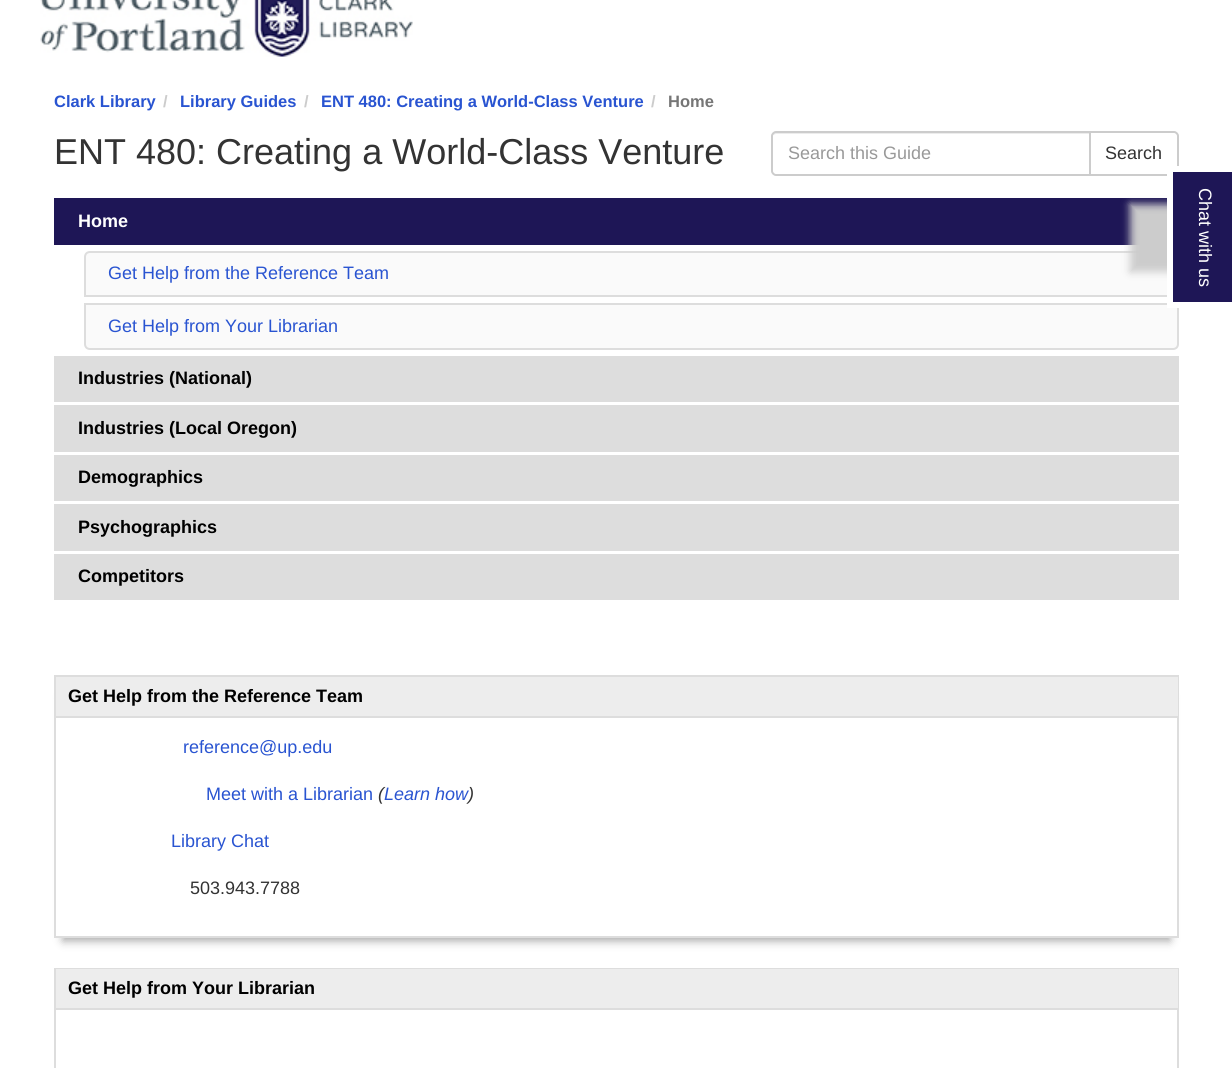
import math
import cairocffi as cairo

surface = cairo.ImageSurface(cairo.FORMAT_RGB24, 1232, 1068)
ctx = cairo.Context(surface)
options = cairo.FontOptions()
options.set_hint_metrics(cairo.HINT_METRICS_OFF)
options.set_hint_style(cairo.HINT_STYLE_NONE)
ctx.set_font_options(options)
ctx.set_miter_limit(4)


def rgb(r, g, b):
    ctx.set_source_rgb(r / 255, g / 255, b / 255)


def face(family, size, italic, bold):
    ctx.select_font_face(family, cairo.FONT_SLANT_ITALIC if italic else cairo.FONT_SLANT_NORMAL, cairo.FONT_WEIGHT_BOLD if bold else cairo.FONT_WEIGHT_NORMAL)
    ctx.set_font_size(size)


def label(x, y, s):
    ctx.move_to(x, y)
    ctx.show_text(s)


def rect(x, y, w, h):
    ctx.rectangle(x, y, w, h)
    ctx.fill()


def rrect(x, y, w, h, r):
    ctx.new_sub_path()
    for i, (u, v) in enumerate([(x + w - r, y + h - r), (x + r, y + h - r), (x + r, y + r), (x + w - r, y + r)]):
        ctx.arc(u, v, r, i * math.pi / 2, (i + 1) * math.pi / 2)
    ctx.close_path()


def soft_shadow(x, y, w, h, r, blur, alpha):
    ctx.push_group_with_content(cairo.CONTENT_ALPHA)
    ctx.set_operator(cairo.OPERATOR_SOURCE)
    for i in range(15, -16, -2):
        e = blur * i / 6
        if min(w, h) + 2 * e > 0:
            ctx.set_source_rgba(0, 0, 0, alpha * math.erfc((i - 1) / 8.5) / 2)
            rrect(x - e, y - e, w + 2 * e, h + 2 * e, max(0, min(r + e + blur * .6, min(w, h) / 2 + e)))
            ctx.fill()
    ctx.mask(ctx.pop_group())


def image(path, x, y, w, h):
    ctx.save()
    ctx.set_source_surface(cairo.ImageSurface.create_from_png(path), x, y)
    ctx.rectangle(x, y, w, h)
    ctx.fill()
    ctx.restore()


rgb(255, 255, 255)
ctx.paint()
image('image0.png', 40, 0, 373, 57)
face('Liberation Sans', 16.5, 0, 1)
rgb(41, 84, 209)
label(54, 107, 'Clark Library')
rgb(204, 204, 204)
label(163, 107, '/')
rgb(41, 84, 209)
label(180, 107, 'Library Guides')
rgb(204, 204, 204)
label(304, 107, '/')
rgb(41, 84, 209)
label(321, 107, 'ENT 480: Creating a World-Class Venture')
rgb(204, 204, 204)
label(651, 107, '/')
rgb(118, 118, 118)
label(668, 107, 'Home')
face('Liberation Sans', 36, 0, 0)
rgb(51, 51, 51)
label(54, 164, 'ENT 480: Creating a World-Class Venture')
rgb(236, 236, 236)
ctx.new_path()
ctx.move_to(776, 134)
ctx.line_to(1089, 134)
ctx.line_to(1089, 132)
ctx.line_to(775, 132)
ctx.line_to(774, 133)
ctx.line_to(773, 135)
ctx.close_path()
ctx.fill()
ctx.new_path()
ctx.move_to(776, 132)
ctx.line_to(1090, 132)
ctx.line_to(1090, 175)
ctx.line_to(776, 175)
ctx.curve_to(774, 175, 772, 173, 772, 171)
ctx.line_to(772, 136)
ctx.curve_to(772, 134, 774, 132, 776, 132)
ctx.close_path()
rgb(204, 204, 204)
ctx.stroke()
face('Liberation Sans', 18, 0, 0)
rgb(153, 153, 153)
label(788, 159, 'Search this Guide')
rgb(255, 255, 255)
ctx.new_path()
ctx.move_to(1090, 132)
ctx.line_to(1174, 132)
ctx.curve_to(1176, 132, 1178, 134, 1178, 136)
ctx.line_to(1178, 171)
ctx.curve_to(1178, 173, 1176, 175, 1174, 175)
ctx.line_to(1090, 175)
ctx.close_path()
ctx.fill_preserve()
rgb(204, 204, 204)
ctx.stroke()
rgb(51, 51, 51)
label(1105, 159, 'Search')
rgb(30, 22, 86)
rect(54, 198, 1113, 47)
face('Liberation Sans', 18, 0, 1)
rgb(255, 255, 255)
label(78, 227, 'Home')
rgb(250, 250, 250)
ctx.new_path()
ctx.move_to(90, 252)
ctx.line_to(1173, 252)
ctx.curve_to(1176, 252, 1178, 254, 1178, 257)
ctx.line_to(1178, 296)
ctx.line_to(85, 296)
ctx.line_to(85, 257)
ctx.curve_to(85, 254, 87, 252, 90, 252)
ctx.close_path()
ctx.fill_preserve()
rgb(221, 221, 221)
ctx.stroke()
face('Liberation Sans', 18, 0, 0)
rgb(41, 84, 209)
label(108, 279, 'Get Help from the Reference Team')
rgb(250, 250, 250)
ctx.new_path()
ctx.move_to(85, 304)
ctx.line_to(1178, 304)
ctx.line_to(1178, 344)
ctx.curve_to(1178, 347, 1176, 349, 1173, 349)
ctx.line_to(90, 349)
ctx.curve_to(87, 349, 85, 347, 85, 344)
ctx.close_path()
ctx.fill_preserve()
rgb(221, 221, 221)
ctx.stroke()
rgb(41, 84, 209)
label(108, 332, 'Get Help from Your Librarian')
rgb(221, 221, 221)
rect(54, 356, 1125, 46)
face('Liberation Sans', 18, 0, 1)
rgb(0, 0, 0)
label(78, 384, 'Industries (National)')
rgb(221, 221, 221)
rect(54, 405, 1125, 47)
rgb(0, 0, 0)
label(78, 434, 'Industries (Local Oregon)')
rgb(221, 221, 221)
rect(54, 455, 1125, 46)
rgb(0, 0, 0)
label(78, 483, 'Demographics')
rgb(221, 221, 221)
rect(54, 504, 1125, 47)
rgb(0, 0, 0)
label(78, 533, 'Psychographics')
rgb(221, 221, 221)
rect(54, 554, 1125, 46)
rgb(0, 0, 0)
label(78, 582, 'Competitors')
rgb(170, 170, 170)
soft_shadow(63, 696, 1107, 245, 0, 4.5, 1)
rgb(255, 255, 255)
rect(56, 718, 1121, 218)
ctx.rectangle(55, 676, 1123, 261)
rgb(221, 221, 221)
ctx.stroke()
rgb(237, 237, 237)
rect(56, 677, 1122, 39)
rgb(221, 221, 221)
rect(56, 716, 1122, 2)
rgb(0, 0, 0)
label(68, 702, 'Get Help from the Reference Team')
face('Liberation Sans', 18, 0, 0)
rgb(41, 84, 209)
label(183, 753, 'reference@up.edu')
label(206, 800, 'Meet with a Librarian')
face('Liberation Sans', 18, 1, 0)
rgb(51, 51, 51)
label(378, 800, '(')
rgb(41, 84, 209)
label(384, 800, 'Learn how')
rgb(51, 51, 51)
label(468, 800, ')')
face('Liberation Sans', 18, 0, 0)
rgb(41, 84, 209)
label(171, 847, 'Library Chat')
rgb(51, 51, 51)
label(190, 894, '503.943.7788')
ctx.rectangle(55, 969, 1123, 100)
rgb(221, 221, 221)
ctx.stroke()
rgb(237, 237, 237)
rect(56, 969, 1122, 39)
rgb(221, 221, 221)
rect(56, 1008, 1122, 2)
face('Liberation Sans', 18, 0, 1)
rgb(0, 0, 0)
label(68, 994, 'Get Help from Your Librarian')
rgb(204, 204, 204)
soft_shadow(1130, 204, 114, 68, 0, 4, 1)
rgb(30, 22, 86)
rect(1173, 172, 59, 130)
rgb(255, 255, 255)
rect(1167, 303, 12, 5)
rect(1167, 166, 6, 131)
rect(1176, 166, 3, 6)
face('Liberation Sans', 18, 0, 0)
ctx.save()
ctx.translate(1199, 188)
ctx.rotate(90 * math.pi / 180)
label(0, 0, 'Chat with us')
ctx.restore()
surface.write_to_png('render.png')
